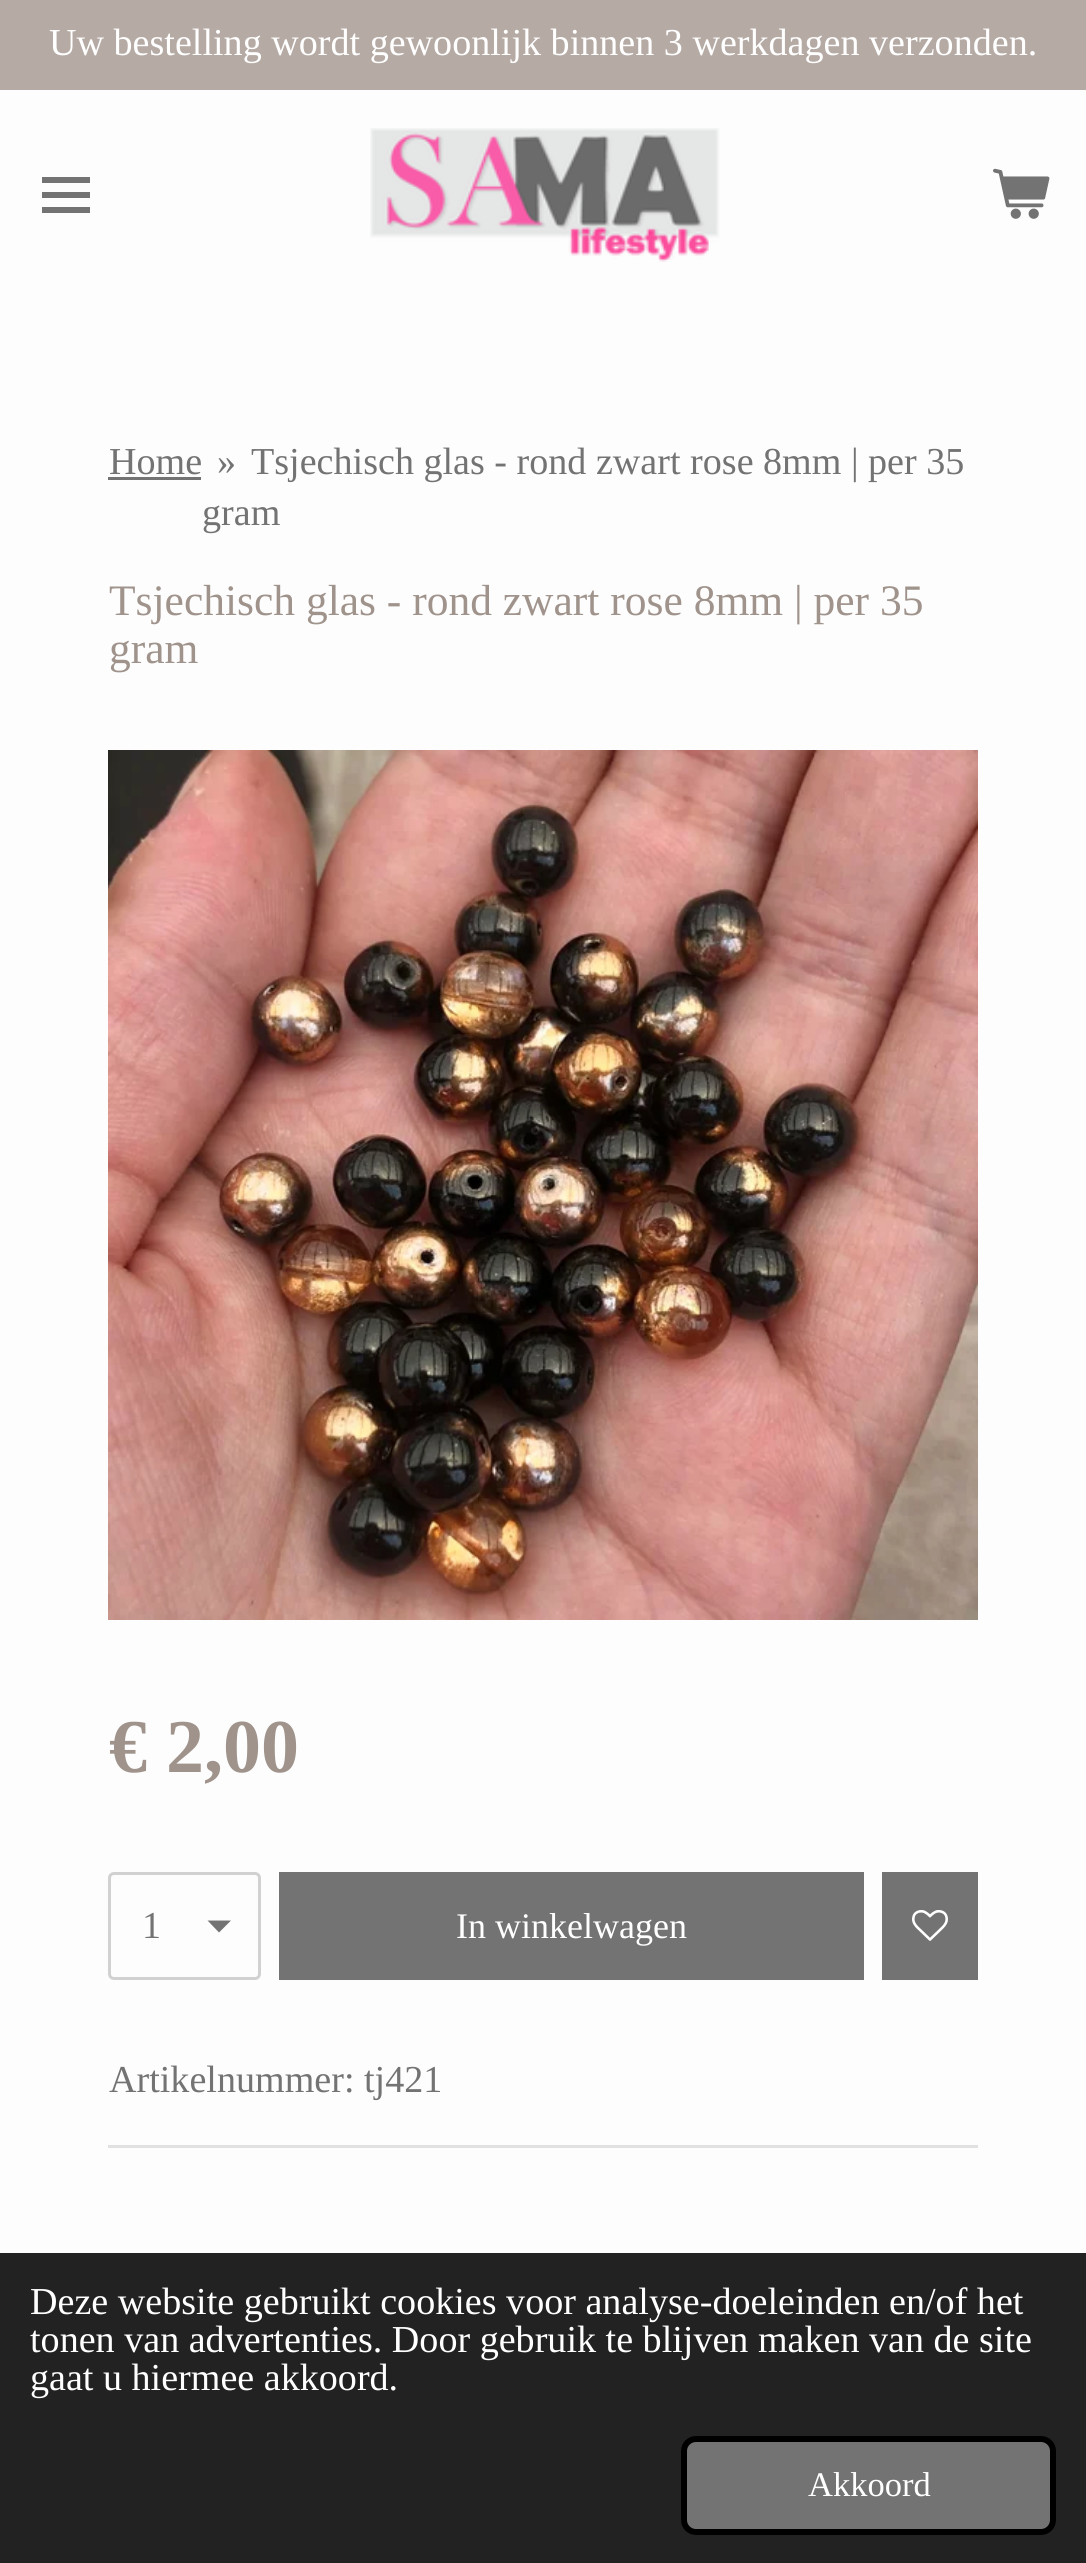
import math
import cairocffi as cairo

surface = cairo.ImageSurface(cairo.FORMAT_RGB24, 1086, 2563)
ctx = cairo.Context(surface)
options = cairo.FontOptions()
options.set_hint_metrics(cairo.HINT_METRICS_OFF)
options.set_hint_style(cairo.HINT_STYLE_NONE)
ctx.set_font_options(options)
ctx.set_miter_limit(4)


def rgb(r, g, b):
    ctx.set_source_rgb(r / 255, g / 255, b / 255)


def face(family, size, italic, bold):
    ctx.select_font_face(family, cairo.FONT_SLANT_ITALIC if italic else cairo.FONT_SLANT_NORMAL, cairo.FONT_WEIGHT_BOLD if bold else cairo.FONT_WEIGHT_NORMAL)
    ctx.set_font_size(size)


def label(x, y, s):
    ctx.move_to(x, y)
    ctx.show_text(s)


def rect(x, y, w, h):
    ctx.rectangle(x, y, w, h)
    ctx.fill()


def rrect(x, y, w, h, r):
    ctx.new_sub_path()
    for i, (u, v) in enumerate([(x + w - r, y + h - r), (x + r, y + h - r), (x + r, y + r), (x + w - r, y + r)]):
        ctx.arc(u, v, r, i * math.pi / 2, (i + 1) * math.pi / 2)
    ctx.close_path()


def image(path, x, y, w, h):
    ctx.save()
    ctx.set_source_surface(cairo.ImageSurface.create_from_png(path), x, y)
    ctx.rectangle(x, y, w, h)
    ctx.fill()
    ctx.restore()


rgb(253, 253, 253)
ctx.paint()
rgb(181, 170, 164)
rect(0, 0, 1086, 90)
face('Liberation Serif', 38.1, 0, 0)
rgb(255, 255, 255)
label(49, 55, 'Uw bestelling wordt gewoonlijk binnen 3 werkdagen verzonden.')
rgb(115, 115, 115)
rect(42, 192, 48, 6)
rect(42, 177, 48, 6)
rect(42, 207, 48, 6)
image('image0.png', 370, 128, 350, 134)
image('image1.png', 993, 168, 57, 51)
label(109, 474, 'Home')
rect(108, 477, 93, 3)
label(217, 474, '»')
label(251, 474, 'Tsjechisch glas - rond zwart rose 8mm | per 35')
label(202, 525, 'gram')
face('Liberation Serif', 43.5, 0, 0)
rgb(159, 147, 140)
label(109, 615, 'Tsjechisch glas - rond zwart rose 8mm | per 35')
label(109, 663, 'gram')
image('image2.png', 108, 750, 870, 870)
face('Liberation Serif', 76, 0, 1)
label(109, 1772, '€ 2,00')
rgb(115, 115, 115)
ctx.new_path()
ctx.move_to(219, 1932.5)
ctx.line_to(207.5, 1920.5)
ctx.line_to(231, 1920.5)
ctx.close_path()
ctx.fill()
rrect(109.5, 1873.5, 150, 105, 4.5)
rgb(209, 209, 209)
ctx.set_line_width(3)
ctx.stroke()
face('Liberation Serif', 38.1, 0, 0)
rgb(115, 115, 115)
label(142, 1938, '1')
rect(279, 1872, 585, 108)
face('Liberation Serif', 36, 0, 0)
rgb(255, 255, 255)
label(456, 1938, 'In winkelwagen')
rgb(115, 115, 115)
rect(882, 1872, 96, 108)
image('image3.png', 912, 1910, 36, 31)
face('Liberation Serif', 38.1, 0, 0)
label(109, 2092, 'Artikelnummer: tj421')
rgb(225, 225, 225)
rect(108, 2145, 870, 3)
rgb(34, 34, 34)
rect(0, 2253, 1086, 310)
rgb(255, 255, 255)
label(30, 2314, 'Deze website gebruikt cookies voor analyse-doeleinden en/of het')
label(30, 2352, 'tonen van advertenties. Door gebruik te blijven maken van de site')
label(30, 2390, 'gaat u hiermee akkoord.')
rgb(115, 115, 115)
rrect(684, 2439, 369, 93, 12)
ctx.fill_preserve()
rgb(0, 0, 0)
ctx.set_line_width(6)
ctx.stroke()
face('Liberation Serif', 34.5, 0, 0)
rgb(255, 255, 255)
label(808, 2496, 'Akkoord')
surface.write_to_png('render.png')
